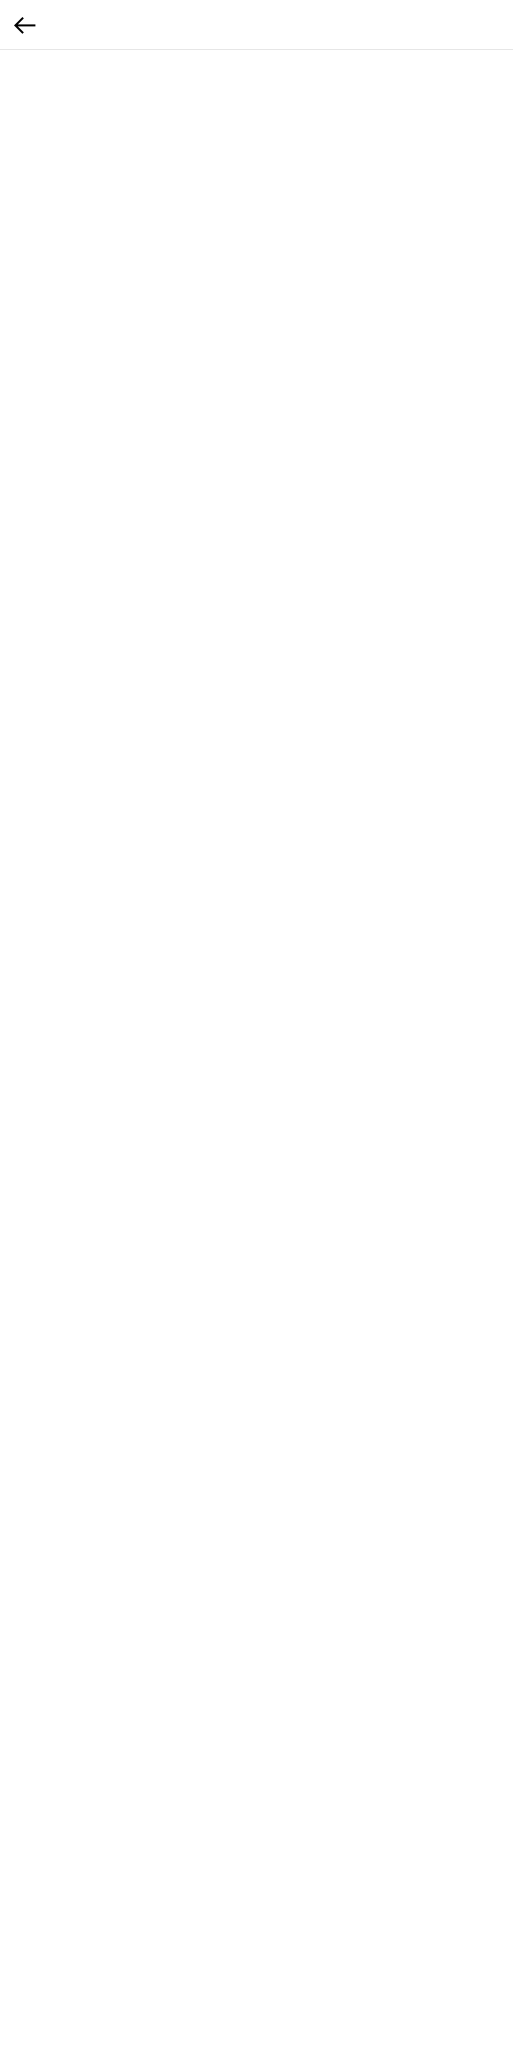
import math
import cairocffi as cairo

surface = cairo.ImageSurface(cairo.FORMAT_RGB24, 513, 2046)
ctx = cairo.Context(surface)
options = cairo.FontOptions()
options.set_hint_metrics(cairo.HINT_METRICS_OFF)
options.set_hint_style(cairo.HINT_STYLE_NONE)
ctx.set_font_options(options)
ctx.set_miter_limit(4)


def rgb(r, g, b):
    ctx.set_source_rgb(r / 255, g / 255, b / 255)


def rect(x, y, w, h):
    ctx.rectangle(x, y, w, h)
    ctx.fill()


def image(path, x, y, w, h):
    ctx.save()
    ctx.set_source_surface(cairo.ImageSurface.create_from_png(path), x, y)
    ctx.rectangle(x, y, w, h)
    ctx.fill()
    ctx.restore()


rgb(255, 255, 255)
ctx.paint()
rgb(230, 230, 230)
rect(0, 49, 513, 1)
image('image0.png', 14, 17, 22, 17)
surface.write_to_png('render.png')
